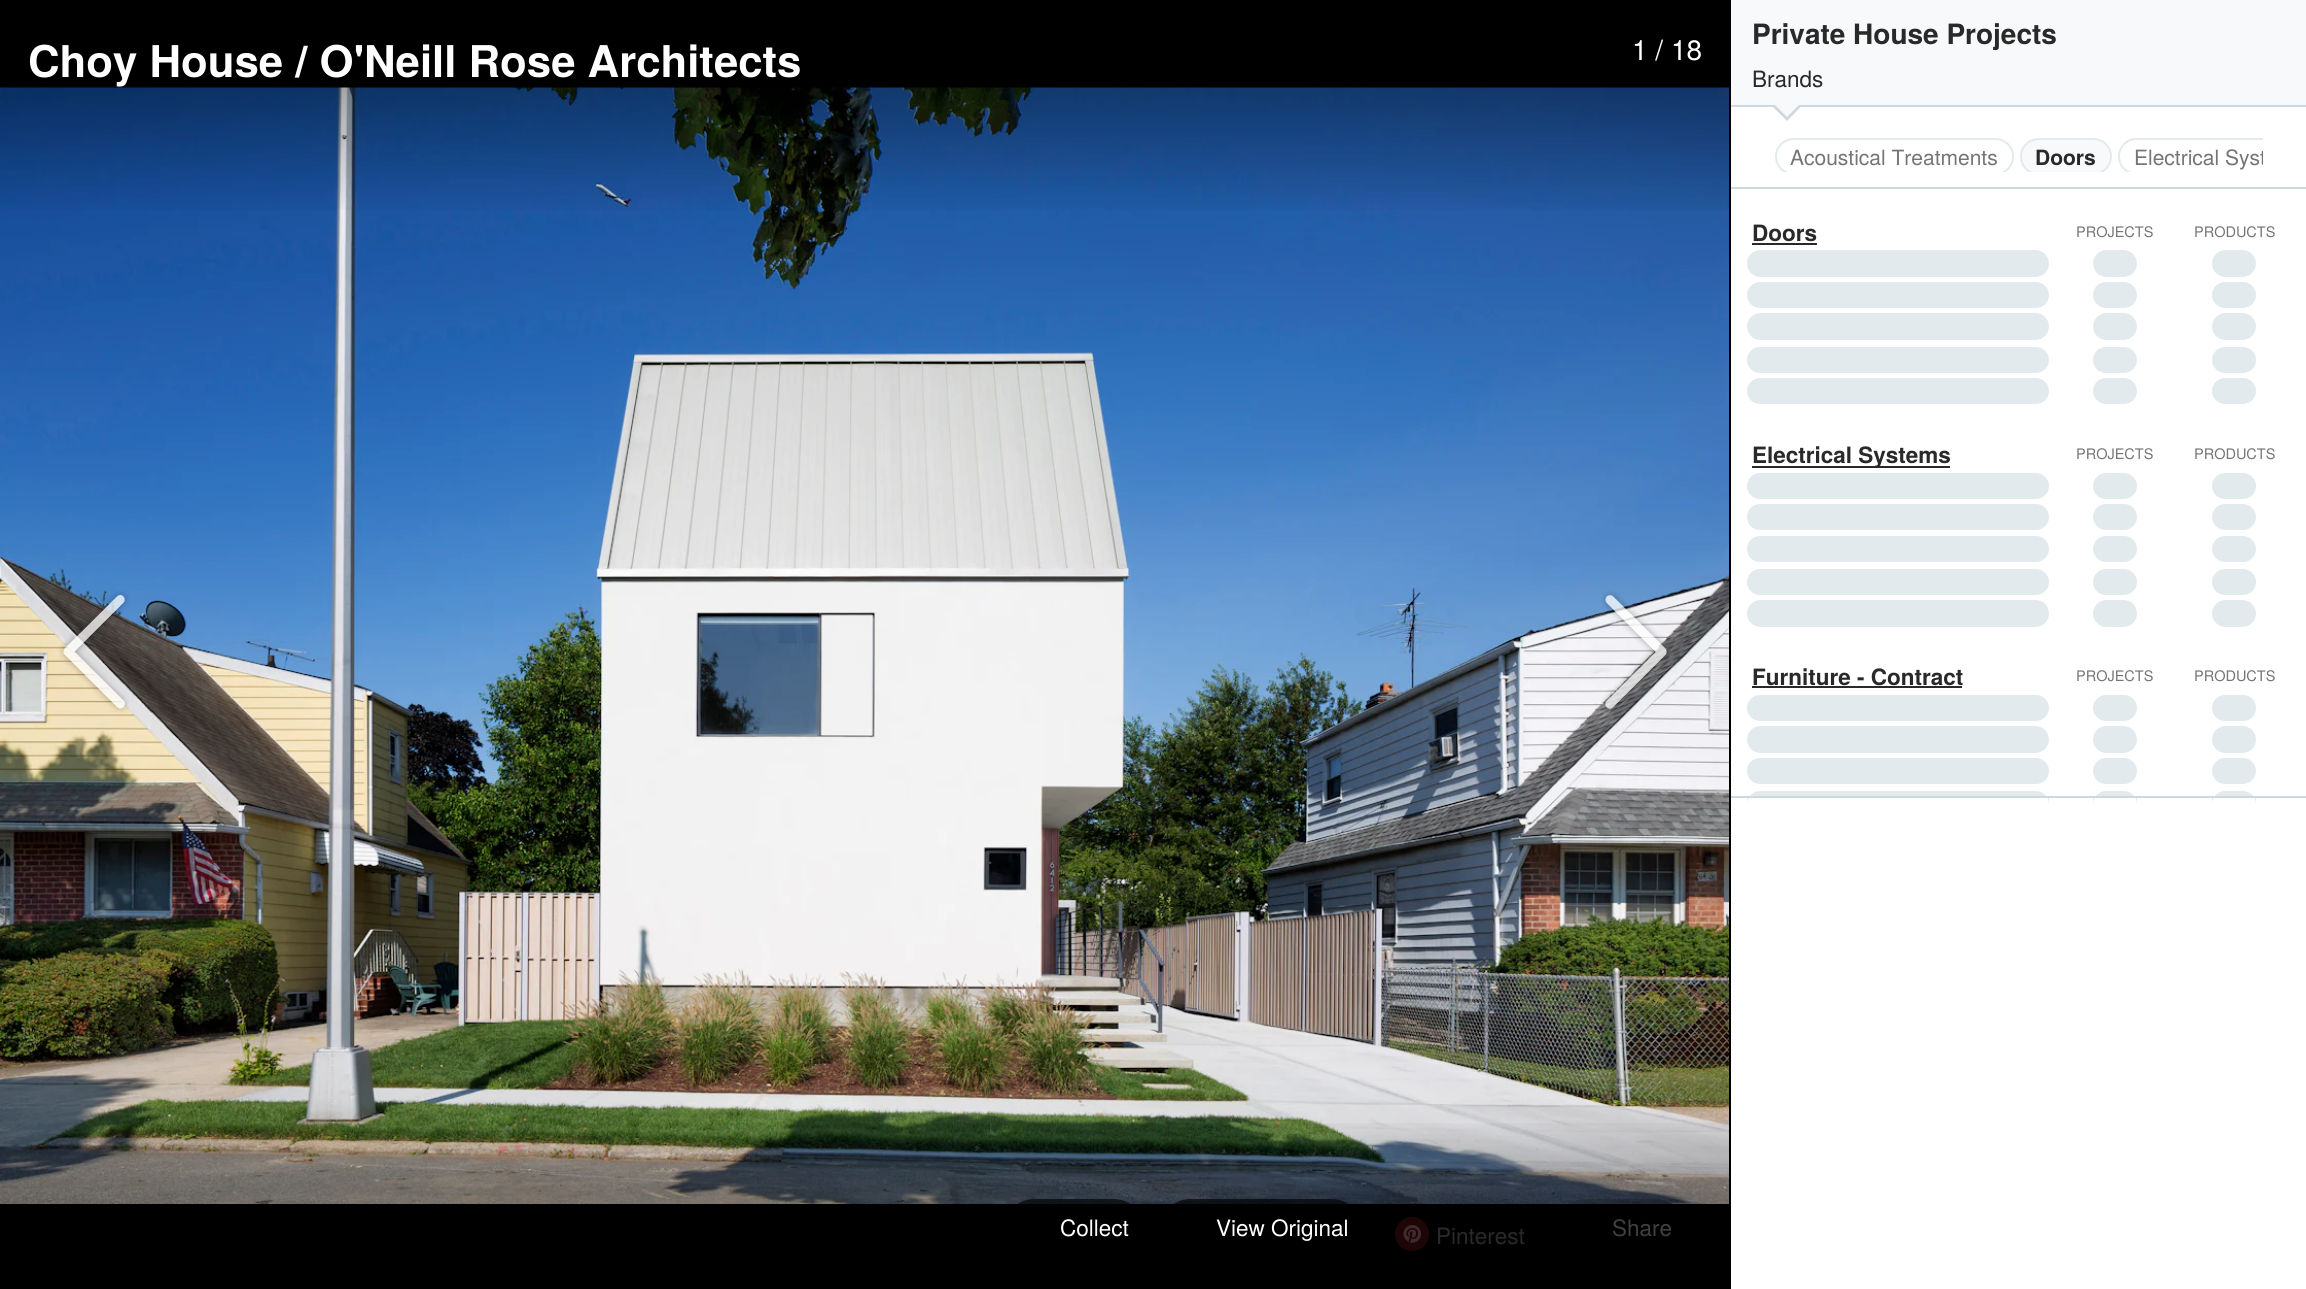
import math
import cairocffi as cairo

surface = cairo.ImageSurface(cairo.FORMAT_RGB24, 2306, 1289)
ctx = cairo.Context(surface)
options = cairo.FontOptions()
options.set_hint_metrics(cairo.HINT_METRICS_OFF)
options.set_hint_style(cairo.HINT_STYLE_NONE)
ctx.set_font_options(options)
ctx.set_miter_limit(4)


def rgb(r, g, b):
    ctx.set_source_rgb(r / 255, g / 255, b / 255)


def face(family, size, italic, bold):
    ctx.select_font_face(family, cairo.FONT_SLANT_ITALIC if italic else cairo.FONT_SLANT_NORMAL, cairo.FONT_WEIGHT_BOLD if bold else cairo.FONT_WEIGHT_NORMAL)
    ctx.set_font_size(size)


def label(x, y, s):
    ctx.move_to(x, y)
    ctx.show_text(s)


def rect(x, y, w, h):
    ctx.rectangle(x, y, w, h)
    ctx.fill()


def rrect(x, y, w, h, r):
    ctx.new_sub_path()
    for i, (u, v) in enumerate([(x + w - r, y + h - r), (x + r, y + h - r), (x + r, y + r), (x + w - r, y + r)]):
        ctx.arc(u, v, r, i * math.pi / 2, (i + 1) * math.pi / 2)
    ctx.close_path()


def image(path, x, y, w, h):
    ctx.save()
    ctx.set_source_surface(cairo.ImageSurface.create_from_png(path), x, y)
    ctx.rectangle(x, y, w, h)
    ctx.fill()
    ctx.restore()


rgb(255, 255, 255)
ctx.paint()
rgb(0, 0, 0)
rect(0, 0, 1731, 1289)
face('TeX Gyre Heros', 43.75, 0, 1)
rgb(255, 255, 255)
label(28, 77, 'Choy House / O\'Neill Rose Architects')
face('TeX Gyre Heros', 28, 0, 0)
label(1632, 60, '1 / 18')
image('image0.png', 0, 87, 1729, 1117)
gradient = cairo.LinearGradient(865, 0, 865, 219)
gradient.add_color_stop_rgba(0, 0, 0, 0, 0.5)
gradient.add_color_stop_rgba(1, 0, 0, 0, 0)
ctx.set_source(gradient)
rect(0, 87, 1729, 123)
image('image1.png', 59, 591, 70, 122)
image('image2.png', 1601, 591, 69, 121)
gradient = cairo.LinearGradient(865, 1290, 865, 1115)
gradient.add_color_stop_rgba(0, 0, 0, 0, 0.5)
gradient.add_color_stop_rgba(1, 0, 0, 0, 0)
ctx.set_source(gradient)
rect(0, 1123, 1729, 81)
ctx.set_source_rgba(0, 0, 0, 0.65)
rrect(1003, 1199, 142, 63, 31.5)
ctx.fill()
face('TeX Gyre Heros', 22.5, 0, 0)
rgb(255, 255, 255)
label(1060, 1236, 'Collect')
ctx.set_source_rgba(0, 0, 0, 0.65)
rrect(1159, 1199, 204, 63, 31.5)
ctx.fill()
rgb(255, 255, 255)
label(1216, 1236, 'View Original')
image('image3.png', 1395, 1217, 34, 34)
rgb(41, 41, 41)
label(1436, 1244, 'Pinterest')
ctx.set_source_rgba(0, 0, 0, 0.16)
rrect(1554, 1199, 133, 63, 31.5)
ctx.fill()
rgb(64, 64, 64)
label(1612, 1236, 'Share')
rgb(247, 249, 250)
rect(1731, 0, 575, 105)
rgb(206, 217, 223)
rect(1731, 105, 575, 2)
face('TeX Gyre Heros', 28, 0, 1)
rgb(41, 41, 41)
label(1752, 44, 'Private House Projects')
face('TeX Gyre Heros', 22.5, 0, 0)
label(1752, 87, 'Brands')
rgb(206, 217, 223)
ctx.new_path()
ctx.move_to(1771, 105)
ctx.line_to(1802.5, 105)
ctx.line_to(1787, 121)
ctx.close_path()
ctx.fill()
rgb(247, 249, 250)
ctx.new_path()
ctx.move_to(1773, 103)
ctx.line_to(1801, 103)
ctx.line_to(1787, 117)
ctx.close_path()
ctx.fill()
ctx.save()
ctx.rectangle(1775, 128, 488, 44)
ctx.clip()
rrect(1776, 139, 237, 35, 17.5)
rgb(227, 234, 237)
ctx.stroke()
ctx.restore()
face('TeX Gyre Heros', 21, 0, 0)
rgb(117, 117, 117)
label(1790, 165, 'Acoustical Treatments')
ctx.save()
ctx.rectangle(1775, 128, 488, 44)
ctx.clip()
rgb(247, 249, 250)
rrect(2021, 139, 90, 35, 17.5)
ctx.fill_preserve()
rgb(227, 234, 237)
ctx.stroke()
ctx.restore()
face('TeX Gyre Heros', 21, 0, 1)
rgb(41, 41, 41)
label(2035, 165, 'Doors')
ctx.save()
ctx.rectangle(1775, 128, 488, 44)
ctx.clip()
rrect(2119, 139, 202, 35, 17.5)
rgb(227, 234, 237)
ctx.stroke()
face('TeX Gyre Heros', 21, 0, 0)
rgb(117, 117, 117)
label(2134, 165, 'Electrical Syst')
ctx.restore()
rgb(206, 217, 223)
rect(1731, 187, 575, 2)
face('TeX Gyre Heros', 22.5, 0, 1)
rgb(41, 41, 41)
label(1752, 241, 'Doors')
rect(1752, 243, 65, 2)
face('TeX Gyre Heros', 14.5, 0, 0)
rgb(117, 117, 117)
label(2076, 237, 'PROJECTS')
label(2194, 237, 'PRODUCTS')
rgb(227, 234, 237)
rrect(1747, 250, 302, 27, 13.5)
ctx.fill()
rrect(2093, 250, 44, 27, 13.5)
ctx.fill()
rrect(2212, 250, 44, 27, 13.5)
ctx.fill()
rrect(1747, 282, 302, 26, 13)
ctx.fill()
rrect(2093, 282, 44, 26, 13)
ctx.fill()
rrect(2212, 282, 44, 26, 13)
ctx.fill()
rrect(1747, 313, 302, 27, 13.5)
ctx.fill()
rrect(2093, 313, 44, 27, 13.5)
ctx.fill()
rrect(2212, 313, 44, 27, 13.5)
ctx.fill()
rrect(1747, 347, 302, 26, 13)
ctx.fill()
rrect(2093, 347, 44, 26, 13)
ctx.fill()
rrect(2212, 347, 44, 26, 13)
ctx.fill()
rrect(1747, 378, 302, 26, 13)
ctx.fill()
rrect(2093, 378, 44, 26, 13)
ctx.fill()
rrect(2212, 378, 44, 26, 13)
ctx.fill()
rgb(41, 41, 41)
rect(1752, 466, 198, 2)
face('TeX Gyre Heros', 22.5, 0, 1)
label(1752, 463, 'Electrical Systems')
face('TeX Gyre Heros', 14.5, 0, 0)
rgb(117, 117, 117)
label(2076, 459, 'PROJECTS')
label(2194, 459, 'PRODUCTS')
rgb(227, 234, 237)
rrect(1747, 473, 302, 26, 13)
ctx.fill()
rrect(2093, 473, 44, 26, 13)
ctx.fill()
rrect(2212, 473, 44, 26, 13)
ctx.fill()
rrect(1747, 504, 302, 26, 13)
ctx.fill()
rrect(2093, 504, 44, 26, 13)
ctx.fill()
rrect(2212, 504, 44, 26, 13)
ctx.fill()
rrect(1747, 536, 302, 26, 13)
ctx.fill()
rrect(2093, 536, 44, 26, 13)
ctx.fill()
rrect(2212, 536, 44, 26, 13)
ctx.fill()
rrect(1747, 569, 302, 26, 13)
ctx.fill()
rrect(2093, 569, 44, 26, 13)
ctx.fill()
rrect(2212, 569, 44, 26, 13)
ctx.fill()
rrect(1747, 600, 302, 27, 13.5)
ctx.fill()
rrect(2093, 600, 44, 27, 13.5)
ctx.fill()
rrect(2212, 600, 44, 27, 13.5)
ctx.fill()
face('TeX Gyre Heros', 22.5, 0, 1)
rgb(41, 41, 41)
label(1752, 685, 'Furniture - Contract')
rect(1752, 686, 210, 2)
face('TeX Gyre Heros', 14.5, 0, 0)
rgb(117, 117, 117)
label(2076, 681, 'PROJECTS')
label(2194, 681, 'PRODUCTS')
rgb(227, 234, 237)
rrect(1747, 695, 302, 26, 13)
ctx.fill()
rrect(2093, 695, 44, 26, 13)
ctx.fill()
rrect(2212, 695, 44, 26, 13)
ctx.fill()
rrect(1747, 726, 302, 27, 13.5)
ctx.fill()
rrect(2093, 726, 44, 27, 13.5)
ctx.fill()
rrect(2212, 726, 44, 27, 13.5)
ctx.fill()
rrect(1747, 758, 302, 26, 13)
ctx.fill()
rrect(2093, 758, 44, 26, 13)
ctx.fill()
rrect(2212, 758, 44, 26, 13)
ctx.fill()
ctx.new_path()
ctx.move_to(1760, 791)
ctx.line_to(2036, 791)
ctx.curve_to(2043, 791, 2049, 797, 2049, 804)
ctx.line_to(2049, 796)
ctx.line_to(1747, 796)
ctx.line_to(1747, 804)
ctx.curve_to(1747, 797, 1753, 791, 1760, 791)
ctx.close_path()
ctx.fill()
ctx.new_path()
ctx.move_to(2106, 791)
ctx.line_to(2124, 791)
ctx.curve_to(2131, 791, 2137, 797, 2137, 804)
ctx.line_to(2137, 796)
ctx.line_to(2093, 796)
ctx.line_to(2093, 804)
ctx.curve_to(2093, 797, 2099, 791, 2106, 791)
ctx.close_path()
ctx.fill()
ctx.new_path()
ctx.move_to(2225, 791)
ctx.line_to(2243, 791)
ctx.curve_to(2250, 791, 2256, 797, 2256, 804)
ctx.line_to(2256, 796)
ctx.line_to(2212, 796)
ctx.line_to(2212, 804)
ctx.curve_to(2212, 797, 2218, 791, 2225, 791)
ctx.close_path()
ctx.fill()
rgb(206, 217, 223)
rect(1731, 796, 575, 2)
surface.write_to_png('render.png')
